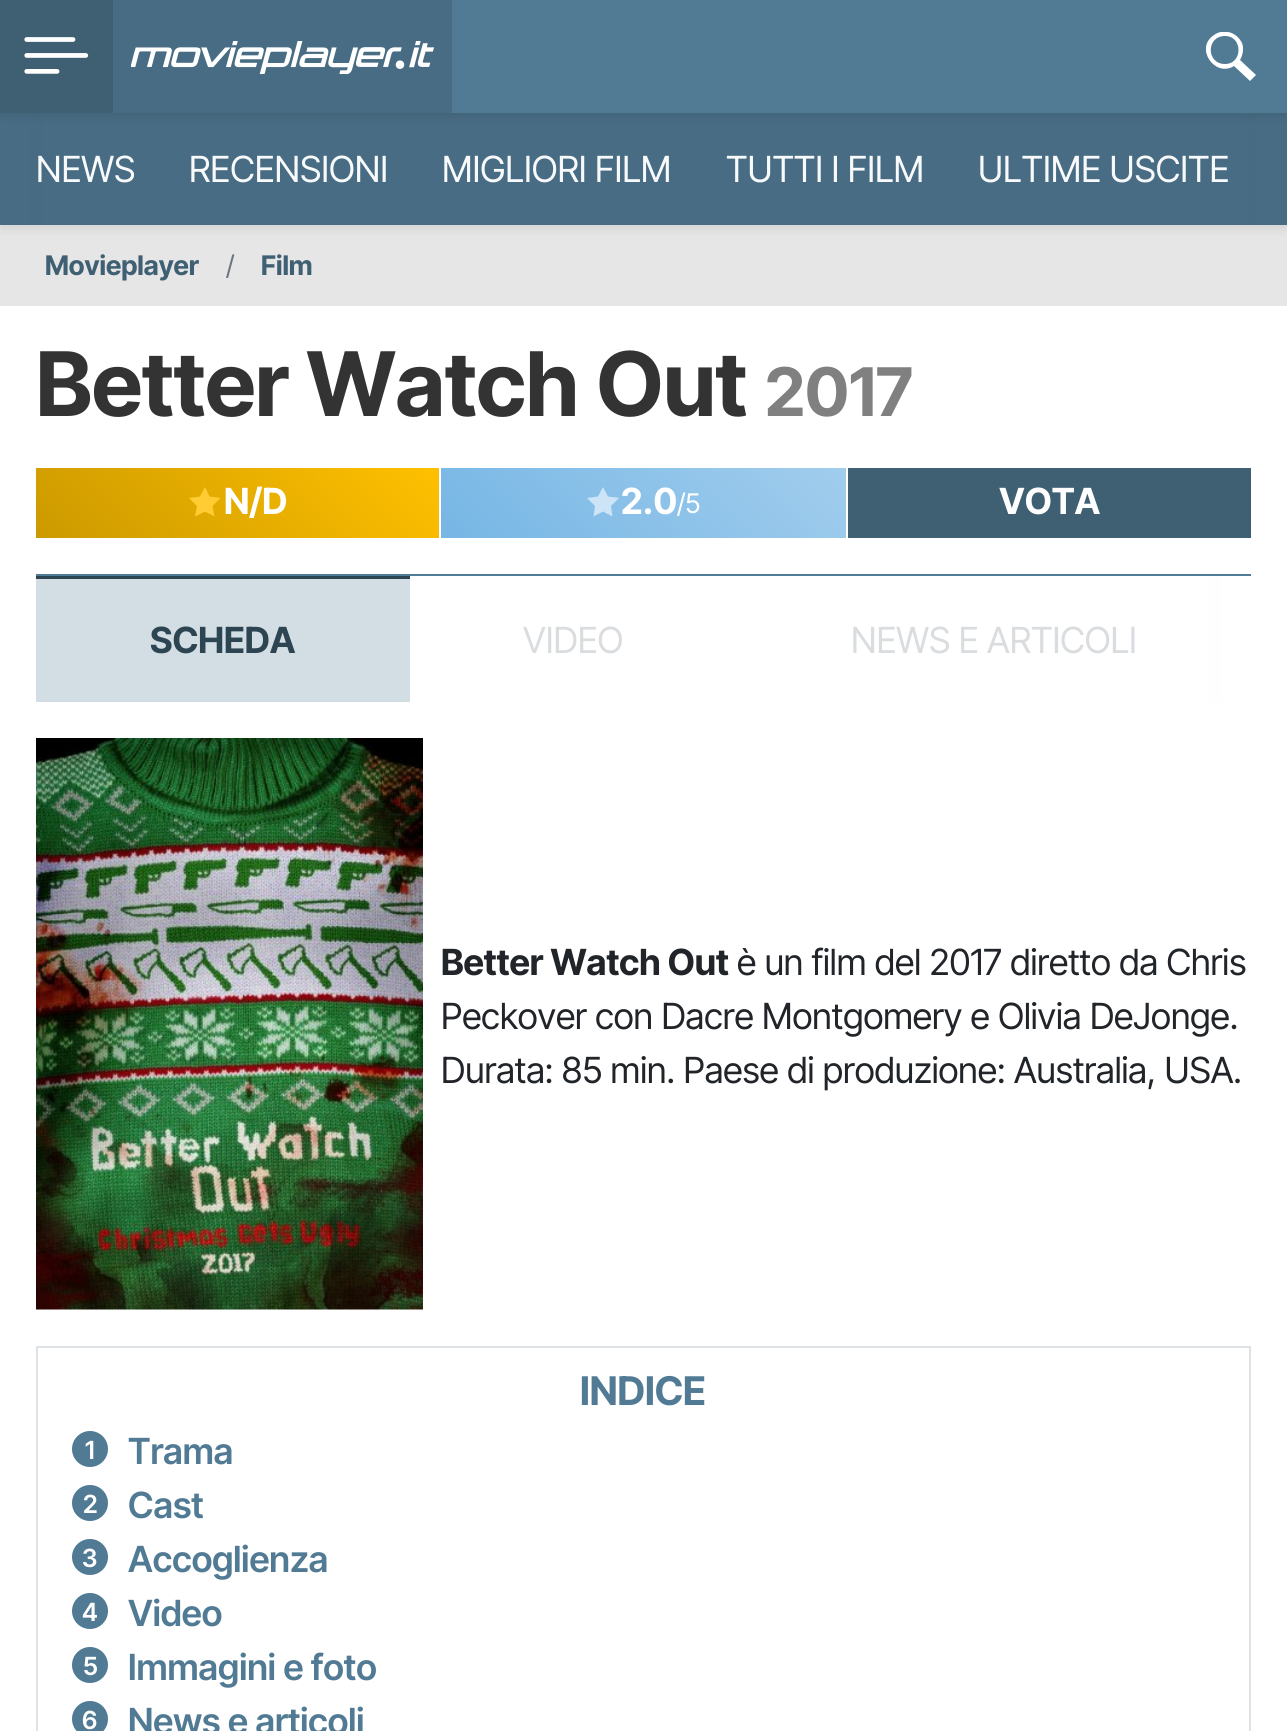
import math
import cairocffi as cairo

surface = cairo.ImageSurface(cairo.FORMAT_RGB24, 1287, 1731)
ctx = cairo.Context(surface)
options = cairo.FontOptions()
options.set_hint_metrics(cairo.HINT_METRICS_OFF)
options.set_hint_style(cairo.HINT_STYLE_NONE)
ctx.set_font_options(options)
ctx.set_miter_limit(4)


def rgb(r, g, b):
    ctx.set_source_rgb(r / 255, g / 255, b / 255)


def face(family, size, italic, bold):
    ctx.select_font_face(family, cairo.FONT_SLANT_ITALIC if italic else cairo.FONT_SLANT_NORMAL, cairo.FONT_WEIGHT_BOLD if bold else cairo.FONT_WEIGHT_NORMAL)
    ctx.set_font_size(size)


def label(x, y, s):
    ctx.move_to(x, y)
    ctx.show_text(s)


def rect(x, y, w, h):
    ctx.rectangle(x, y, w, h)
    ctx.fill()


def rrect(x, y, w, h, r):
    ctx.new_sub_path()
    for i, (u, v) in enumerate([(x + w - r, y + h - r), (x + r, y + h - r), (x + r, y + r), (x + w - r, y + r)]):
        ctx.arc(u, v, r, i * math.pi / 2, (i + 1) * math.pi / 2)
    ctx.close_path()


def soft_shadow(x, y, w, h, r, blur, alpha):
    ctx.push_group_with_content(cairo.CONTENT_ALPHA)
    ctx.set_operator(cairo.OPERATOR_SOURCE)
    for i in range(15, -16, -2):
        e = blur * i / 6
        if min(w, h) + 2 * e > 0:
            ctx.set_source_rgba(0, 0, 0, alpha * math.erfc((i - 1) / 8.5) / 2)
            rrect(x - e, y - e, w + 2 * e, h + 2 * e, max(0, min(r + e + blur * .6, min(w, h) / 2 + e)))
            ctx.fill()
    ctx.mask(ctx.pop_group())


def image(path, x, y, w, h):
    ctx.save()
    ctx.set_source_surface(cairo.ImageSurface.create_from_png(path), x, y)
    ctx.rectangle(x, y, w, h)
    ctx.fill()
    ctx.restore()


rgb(255, 255, 255)
ctx.paint()
rgb(230, 230, 230)
rect(0, 225, 1287, 81)
rgb(0, 0, 0)
soft_shadow(0, 5, 1287, 225, 0, 4.5, 0.07)
rgb(72, 108, 132)
rect(45, 113, 1197, 112)
gradient = cairo.LinearGradient(1242, 169, 1287, 169)
gradient.add_color_stop_rgba(0, 0.282, 0.424, 0.518, 1)
gradient.add_color_stop_rgba(1, 0.176, 0.267, 0.325, 1)
ctx.set_source(gradient)
rect(1242, 113, 18, 112)
gradient = cairo.LinearGradient(0, 169, 45, 169)
gradient.add_color_stop_rgba(0, 0.176, 0.267, 0.325, 1)
gradient.add_color_stop_rgba(1, 0.282, 0.424, 0.518, 1)
ctx.set_source(gradient)
rect(27, 113, 18, 112)
gradient = cairo.LinearGradient(1197, 169, 1287, 169)
gradient.add_color_stop_rgba(0, 0.282, 0.424, 0.518, 0)
gradient.add_color_stop_rgba(0.7, 0.282, 0.424, 0.518, 1)
ctx.set_source(gradient)
rect(1244, 113, 43, 112)
gradient = cairo.LinearGradient(0, 169, 90, 169)
gradient.add_color_stop_rgba(0.3, 0.282, 0.424, 0.518, 1)
gradient.add_color_stop_rgba(1, 0.282, 0.424, 0.518, 0)
ctx.set_source(gradient)
rect(0, 113, 43, 112)
rgb(0, 0, 0)
soft_shadow(0, 5, 1287, 112, 0, 4.5, 0.07)
rgb(81, 122, 148)
rect(452, 0, 835, 113)
rgb(63, 95, 115)
rect(0, 0, 113, 113)
image('image0.png', 24, 37, 65, 37)
rgb(72, 108, 132)
rect(113, 0, 339, 113)
image('image1.png', 131, 41, 303, 33)
ctx.save()
ctx.rectangle(1206, 32, 50, 49)
ctx.clip()
rgb(255, 255, 255)
ctx.new_path()
ctx.move_to(1250, 81)
ctx.line_to(1234, 66)
ctx.curve_to(1215, 78, 1194, 48, 1214, 35)
ctx.curve_to(1218, 32, 1223, 31, 1228, 32)
ctx.curve_to(1234, 33, 1239, 37, 1242, 43)
ctx.curve_to(1244, 48, 1243, 55, 1240, 60)
ctx.line_to(1256, 75)
ctx.close_path()
ctx.move_to(1225, 64)
ctx.curve_to(1243, 64, 1243, 36, 1225, 36)
ctx.curve_to(1206, 36, 1206, 64, 1225, 64)
ctx.close_path()
ctx.fill()
ctx.restore()
face('Inter Tight', 36, 0, 0)
rgb(248, 249, 250)
label(36, 182, 'NEWS')
label(189, 182, 'RECENSIONI')
label(442, 182, 'MIGLIORI FILM')
label(726, 182, 'TUTTI I FILM')
label(978, 182, 'ULTIME USCITE')
face('Inter Tight', 27, 0, 1)
rgb(63, 95, 115)
label(45, 275, 'Movieplayer')
face('Inter Tight', 27, 0, 0)
rgb(108, 117, 125)
label(226, 275, '/')
face('Inter Tight', 27, 0, 1)
rgb(63, 95, 115)
label(261, 275, 'Film')
face('Inter Tight', 89, 0, 1)
rgb(51, 51, 51)
label(36, 416, 'Better Watch Out')
face('Inter Tight', 67, 0, 1)
rgb(128, 128, 128)
label(765, 416, '2017')
gradient = cairo.LinearGradient(119, 621, 356, 385)
gradient.add_color_stop_rgba(0, 0.8, 0.604, 0, 1)
gradient.add_color_stop_rgba(1, 1, 0.753, 0, 1)
ctx.set_source(gradient)
rect(36, 468, 403, 70)
rgb(255, 205, 51)
ctx.new_path()
ctx.move_to(205, 487)
ctx.line_to(209.5, 496.5)
ctx.line_to(220.5, 498)
ctx.line_to(212.5, 506)
ctx.line_to(214.5, 516.5)
ctx.line_to(205, 511.5)
ctx.line_to(195, 516.5)
ctx.line_to(197, 506)
ctx.line_to(189, 498)
ctx.line_to(200, 496.5)
ctx.close_path()
ctx.fill()
face('Inter Tight', 36, 0, 1)
rgb(255, 255, 255)
label(224, 514, 'N/D')
gradient = cairo.LinearGradient(525, 622, 762, 384)
gradient.add_color_stop_rgba(0, 0.463, 0.714, 0.898, 1)
gradient.add_color_stop_rgba(1, 0.631, 0.804, 0.929, 1)
ctx.set_source(gradient)
rect(441, 468, 405, 70)
rgb(204, 228, 245)
ctx.new_path()
ctx.move_to(603, 487)
ctx.line_to(608, 496.5)
ctx.line_to(619, 498)
ctx.line_to(611, 506)
ctx.line_to(612.5, 516.5)
ctx.line_to(603, 511.5)
ctx.line_to(593.5, 516.5)
ctx.line_to(595, 506)
ctx.line_to(587, 498)
ctx.line_to(598, 496.5)
ctx.close_path()
ctx.fill()
rgb(255, 255, 255)
label(621, 514, '2.0')
face('Inter Tight', 27, 0, 0)
label(677, 513, '/5')
rgb(63, 95, 115)
rect(848, 468, 403, 70)
face('Inter Tight', 36, 0, 1)
rgb(255, 255, 255)
label(999, 514, 'VOTA')
gradient = cairo.LinearGradient(1206, 639, 1251, 639)
gradient.add_color_stop_rgba(0, 1, 1, 1, 1)
gradient.add_color_stop_rgba(1, 0.82, 0.855, 0.878, 1)
ctx.set_source(gradient)
rect(1208, 576, 16, 126)
gradient = cairo.LinearGradient(1161, 639, 1251, 639)
gradient.add_color_stop_rgba(0, 1, 1, 1, 0)
gradient.add_color_stop_rgba(0.7, 1, 1, 1, 1)
ctx.set_source(gradient)
rect(1209, 576, 15, 126)
rgb(81, 122, 148)
rect(36, 574, 1215, 2)
rgb(211, 222, 228)
rect(36, 579, 374, 123)
rgb(45, 68, 82)
rect(36, 576, 374, 3)
label(150, 653, 'SCHEDA')
face('Inter Tight', 36, 0, 0)
rgb(218, 221, 223)
label(523, 653, 'VIDEO')
label(851, 653, 'NEWS E ARTICOLI')
image('image2.png', 36, 738, 387, 572)
face('Inter Tight', 36, 0, 1)
rgb(33, 37, 41)
label(441, 975, 'Better Watch Out')
face('Inter Tight', 36, 0, 0)
label(737, 975, 'è un film del 2017 diretto da Chris')
label(441, 1029, 'Peckover con Dacre Montgomery e Olivia DeJonge.')
label(441, 1083, 'Durata: 85 min. Paese di produzione: Australia, USA.')
ctx.rectangle(37, 1347, 1213, 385)
rgb(222, 226, 230)
ctx.stroke()
face('Inter Tight', 39.5, 0, 1)
rgb(81, 122, 148)
label(580, 1405, 'INDICE')
ctx.new_path()
ctx.arc(90, 1449, 18, 0, 2 * math.pi)
ctx.fill()
face('Inter Tight SemiBold', 25, 0, 0)
rgb(255, 255, 255)
label(85, 1459, '1')
face('Inter Tight SemiBold', 36, 0, 0)
rgb(81, 122, 148)
label(128, 1464, 'Trama')
ctx.new_path()
ctx.arc(90, 1503, 18, 0, 2 * math.pi)
ctx.fill()
face('Inter Tight SemiBold', 25, 0, 0)
rgb(255, 255, 255)
label(83, 1513, '2')
face('Inter Tight SemiBold', 36, 0, 0)
rgb(81, 122, 148)
label(128, 1518, 'Cast')
ctx.new_path()
ctx.arc(90, 1557, 18, 0, 2 * math.pi)
ctx.fill()
face('Inter Tight SemiBold', 25, 0, 0)
rgb(255, 255, 255)
label(82, 1567, '3')
face('Inter Tight SemiBold', 36, 0, 0)
rgb(81, 122, 148)
label(128, 1572, 'Accoglienza')
ctx.new_path()
ctx.arc(90, 1611, 18, 0, 2 * math.pi)
ctx.fill()
face('Inter Tight SemiBold', 25, 0, 0)
rgb(255, 255, 255)
label(82, 1621, '4')
face('Inter Tight SemiBold', 36, 0, 0)
rgb(81, 122, 148)
label(128, 1626, 'Video')
ctx.new_path()
ctx.arc(90, 1665, 18, 0, 2 * math.pi)
ctx.fill()
face('Inter Tight SemiBold', 25, 0, 0)
rgb(255, 255, 255)
label(83, 1675, '5')
face('Inter Tight SemiBold', 36, 0, 0)
rgb(81, 122, 148)
label(128, 1680, 'Immagini e foto')
ctx.new_path()
ctx.arc(90, 1719, 18, 0, 2 * math.pi)
ctx.fill()
face('Inter Tight SemiBold', 25, 0, 0)
rgb(255, 255, 255)
label(82, 1729, '6')
face('Inter Tight SemiBold', 36, 0, 0)
rgb(81, 122, 148)
label(128, 1734, 'News e articoli')
surface.write_to_png('render.png')
